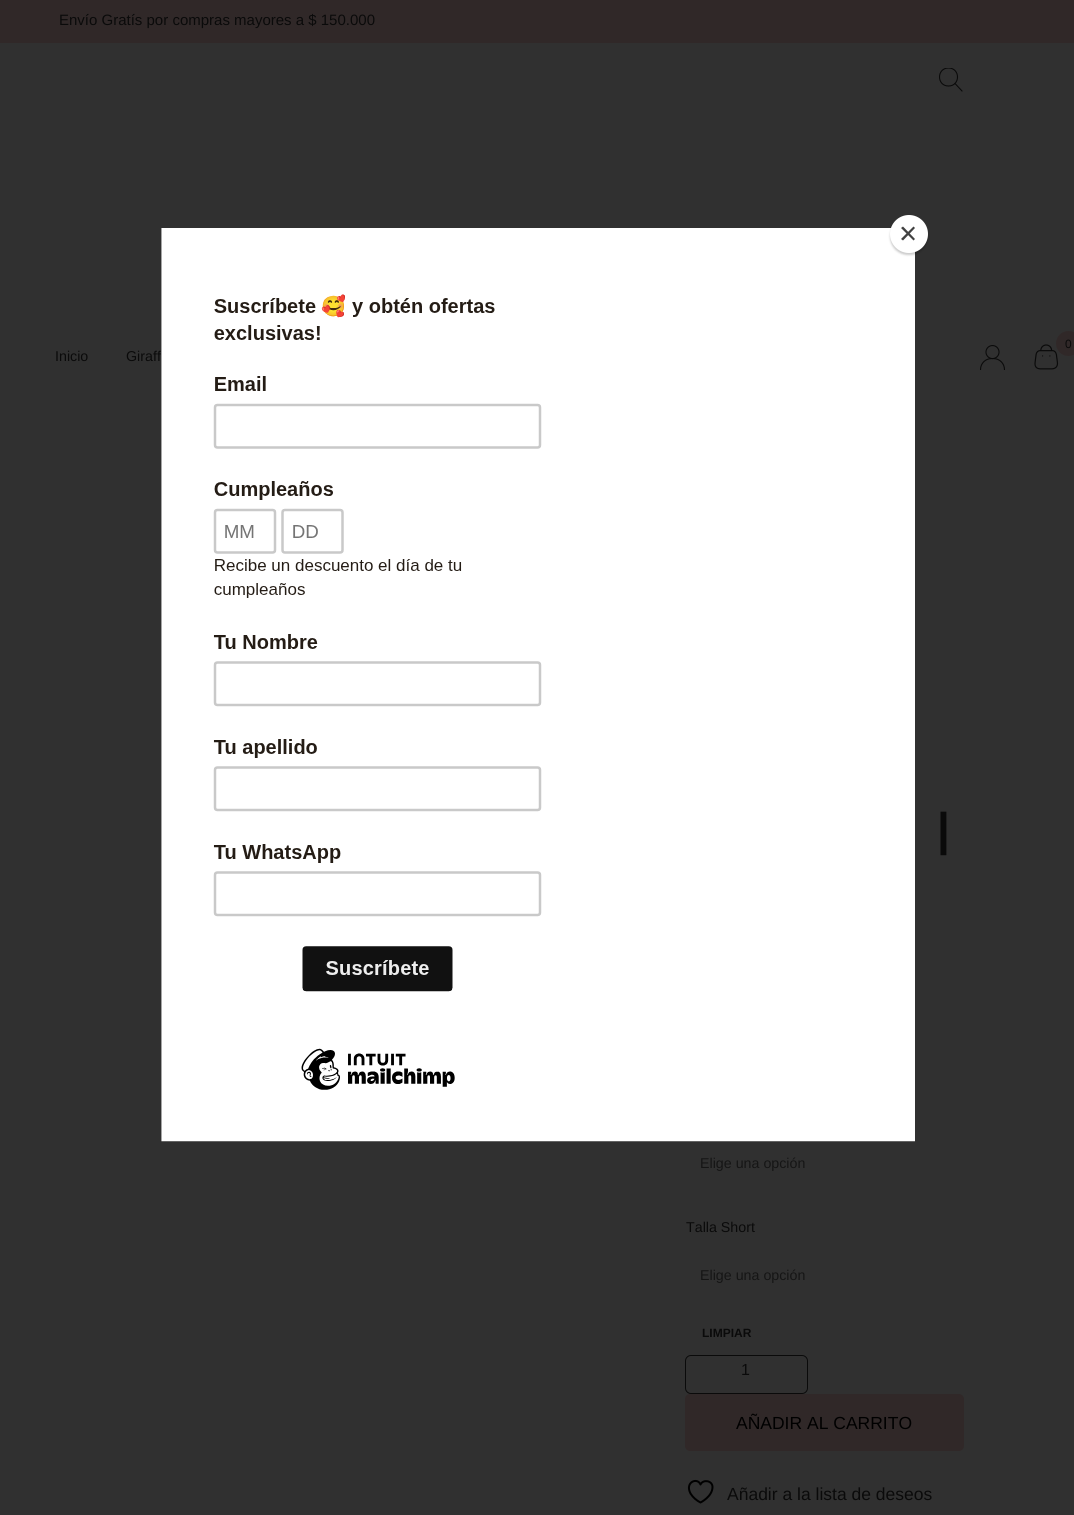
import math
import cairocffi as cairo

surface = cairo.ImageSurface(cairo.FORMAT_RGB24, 1074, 1515)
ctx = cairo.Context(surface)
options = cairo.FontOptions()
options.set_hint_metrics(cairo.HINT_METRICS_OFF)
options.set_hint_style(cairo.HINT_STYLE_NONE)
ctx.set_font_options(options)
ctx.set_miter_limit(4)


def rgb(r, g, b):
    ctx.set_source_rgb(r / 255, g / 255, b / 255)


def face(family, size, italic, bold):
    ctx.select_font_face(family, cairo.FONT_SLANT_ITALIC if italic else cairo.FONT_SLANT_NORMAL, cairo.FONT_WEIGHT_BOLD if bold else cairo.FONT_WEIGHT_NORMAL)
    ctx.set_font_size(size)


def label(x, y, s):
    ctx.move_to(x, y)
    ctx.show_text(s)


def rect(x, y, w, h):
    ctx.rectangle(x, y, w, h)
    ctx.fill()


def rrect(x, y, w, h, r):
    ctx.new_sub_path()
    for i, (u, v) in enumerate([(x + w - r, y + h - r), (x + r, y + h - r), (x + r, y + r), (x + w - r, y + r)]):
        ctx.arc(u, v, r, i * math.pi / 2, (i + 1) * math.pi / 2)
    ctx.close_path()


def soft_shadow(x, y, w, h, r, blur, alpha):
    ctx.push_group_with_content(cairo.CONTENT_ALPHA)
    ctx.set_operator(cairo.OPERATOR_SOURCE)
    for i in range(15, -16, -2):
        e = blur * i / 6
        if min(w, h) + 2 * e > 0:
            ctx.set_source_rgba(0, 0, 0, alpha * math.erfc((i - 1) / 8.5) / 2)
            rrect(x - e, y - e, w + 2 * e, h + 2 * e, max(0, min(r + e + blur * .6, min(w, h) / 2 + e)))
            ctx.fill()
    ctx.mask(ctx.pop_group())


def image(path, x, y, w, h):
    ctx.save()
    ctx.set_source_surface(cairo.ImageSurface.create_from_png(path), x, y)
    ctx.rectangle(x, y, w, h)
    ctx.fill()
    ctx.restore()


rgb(48, 48, 48)
ctx.paint()
rgb(48, 40, 40)
rect(0, 0, 1074, 43)
face('Liberation Sans', 15, 0, 0)
rgb(10, 10, 10)
label(59, 25, 'Envío Gratís por compras mayores a $ 150.000')
ctx.new_path()
ctx.move_to(962, 91)
ctx.line_to(955, 83.5)
ctx.set_line_width(1.1)
ctx.set_line_cap(cairo.LINE_CAP_SQUARE)
ctx.stroke()
ctx.save()
ctx.rectangle(939, 68, 25, 25)
ctx.clip()
ctx.new_path()
ctx.move_to(948.5, 86)
ctx.curve_to(960.5, 86, 960.5, 68, 948.5, 68)
ctx.curve_to(936.5, 68, 936.5, 86, 948.5, 86)
ctx.close_path()
ctx.stroke()
ctx.restore()
image('image0.png', 1034, 344, 25, 26)
rgb(48, 40, 40)
ctx.arc(1068.5, 343.5, 12.5, 0, 2 * math.pi)
ctx.fill()
face('Liberation Sans', 12, 0, 0)
rgb(10, 10, 10)
label(1065, 348, '0')
face('Liberation Sans', 14.25, 0, 0)
label(55, 361, 'Inicio')
label(126, 361, 'Giraff')
image('image1.png', 980, 345, 25, 25)
face('Liberation Sans', 46, 0, 1)
label(937, 845, '|')
face('Liberation Sans', 14.25, 0, 0)
rgb(21, 21, 21)
label(700, 1168, 'Elige una opción')
rgb(10, 10, 10)
label(686, 1232, 'Talla Short')
rgb(21, 21, 21)
label(700, 1280, 'Elige una opción')
face('Liberation Sans', 12, 0, 1)
rgb(10, 10, 10)
label(702, 1337, 'LIMPIAR')
rrect(685.5, 1355.5, 122, 38, 5.5)
ctx.set_line_width(1)
ctx.set_line_cap(cairo.LINE_CAP_BUTT)
ctx.stroke()
face('Liberation Sans', 16, 0, 0)
label(741, 1375, '1')
rgb(48, 40, 40)
rrect(685, 1394, 279, 57, 5)
ctx.fill()
face('Liberation Sans', 17.5, 0, 0)
rgb(0, 0, 0)
label(736, 1429, 'AÑADIR AL CARRITO')
ctx.new_path()
ctx.move_to(712.5, 1487)
ctx.curve_to(712.5, 1480.5, 703, 1479, 700.5, 1484.5)
ctx.curve_to(697.5, 1477, 684.5, 1482, 690.5, 1493.5)
ctx.curve_to(693, 1497.5, 696.5, 1500.5, 700.5, 1502.5)
ctx.curve_to(700.5, 1502.5, 712.5, 1496.5, 712.5, 1487)
ctx.close_path()
ctx.set_line_width(2)
ctx.set_line_cap(cairo.LINE_CAP_ROUND)
ctx.set_line_join(cairo.LINE_JOIN_ROUND)
ctx.stroke()
rgb(10, 10, 10)
label(727, 1500, 'Añadir a la lista de deseos')
image('image2.png', 161, 228, 754, 914)
rgb(0, 0, 0)
soft_shadow(890, 218, 38, 37, 18.5, 1, 0.2)
rgb(255, 255, 255)
ctx.arc(909, 234, 19, 0, 2 * math.pi)
ctx.fill()
rgb(65, 65, 65)
ctx.new_path()
ctx.move_to(913.5, 226.5)
ctx.line_to(915, 228)
ctx.line_to(903, 240.5)
ctx.line_to(901, 239)
ctx.close_path()
ctx.fill()
ctx.new_path()
ctx.move_to(901, 228)
ctx.line_to(903, 226.5)
ctx.line_to(915, 239)
ctx.line_to(913.5, 240.5)
ctx.close_path()
ctx.fill()
surface.write_to_png('render.png')
